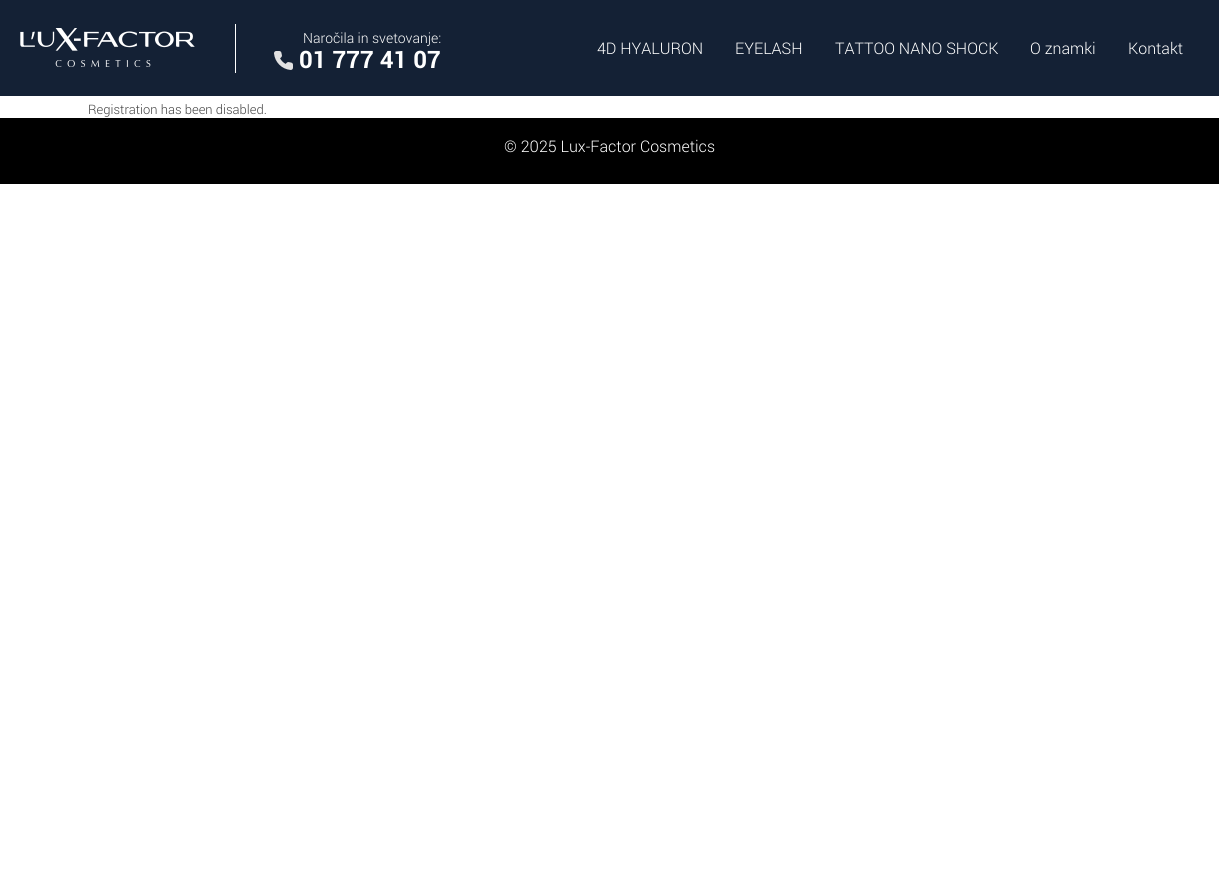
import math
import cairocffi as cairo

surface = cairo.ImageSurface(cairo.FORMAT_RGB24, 1219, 888)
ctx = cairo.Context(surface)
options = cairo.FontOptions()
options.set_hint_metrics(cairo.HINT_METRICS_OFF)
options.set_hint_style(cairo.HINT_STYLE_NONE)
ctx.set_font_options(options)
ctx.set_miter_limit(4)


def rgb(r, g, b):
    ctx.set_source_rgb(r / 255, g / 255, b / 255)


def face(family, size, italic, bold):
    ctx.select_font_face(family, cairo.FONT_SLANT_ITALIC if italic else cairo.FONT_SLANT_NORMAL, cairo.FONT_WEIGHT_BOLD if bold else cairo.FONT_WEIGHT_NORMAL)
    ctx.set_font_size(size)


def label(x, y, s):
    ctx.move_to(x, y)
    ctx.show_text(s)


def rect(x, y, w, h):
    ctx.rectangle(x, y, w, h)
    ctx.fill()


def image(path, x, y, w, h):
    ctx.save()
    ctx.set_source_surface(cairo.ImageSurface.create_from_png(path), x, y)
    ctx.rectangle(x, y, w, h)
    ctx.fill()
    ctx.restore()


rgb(255, 255, 255)
ctx.paint()
rgb(20, 33, 53)
rect(0, 0, 1219, 96)
image('image0.png', 20, 28, 175, 39)
rgb(255, 255, 255)
rect(235, 24, 1, 49)
face('Roboto Light', 14, 0, 0)
label(303, 43, 'Naročila in svetovanje:')
image('image1.png', 274, 51, 19, 19)
face('Roboto', 24, 0, 1)
label(299, 68, '01 777 41 07')
face('Roboto Light', 16, 0, 0)
label(597, 54, '4D HYALURON')
label(735, 54, 'EYELASH')
label(835, 54, 'TATTOO NANO SHOCK')
label(1030, 54, 'O znamki')
label(1128, 54, 'Kontakt')
face('Roboto Light', 13, 0, 0)
rgb(68, 68, 68)
label(88, 114, 'Registration has been disabled.')
rgb(0, 0, 0)
rect(0, 118, 1219, 66)
face('Roboto Light', 16, 0, 0)
rgb(255, 255, 255)
label(504, 152, '© 2025 Lux-Factor Cosmetics')
surface.write_to_png('render.png')
